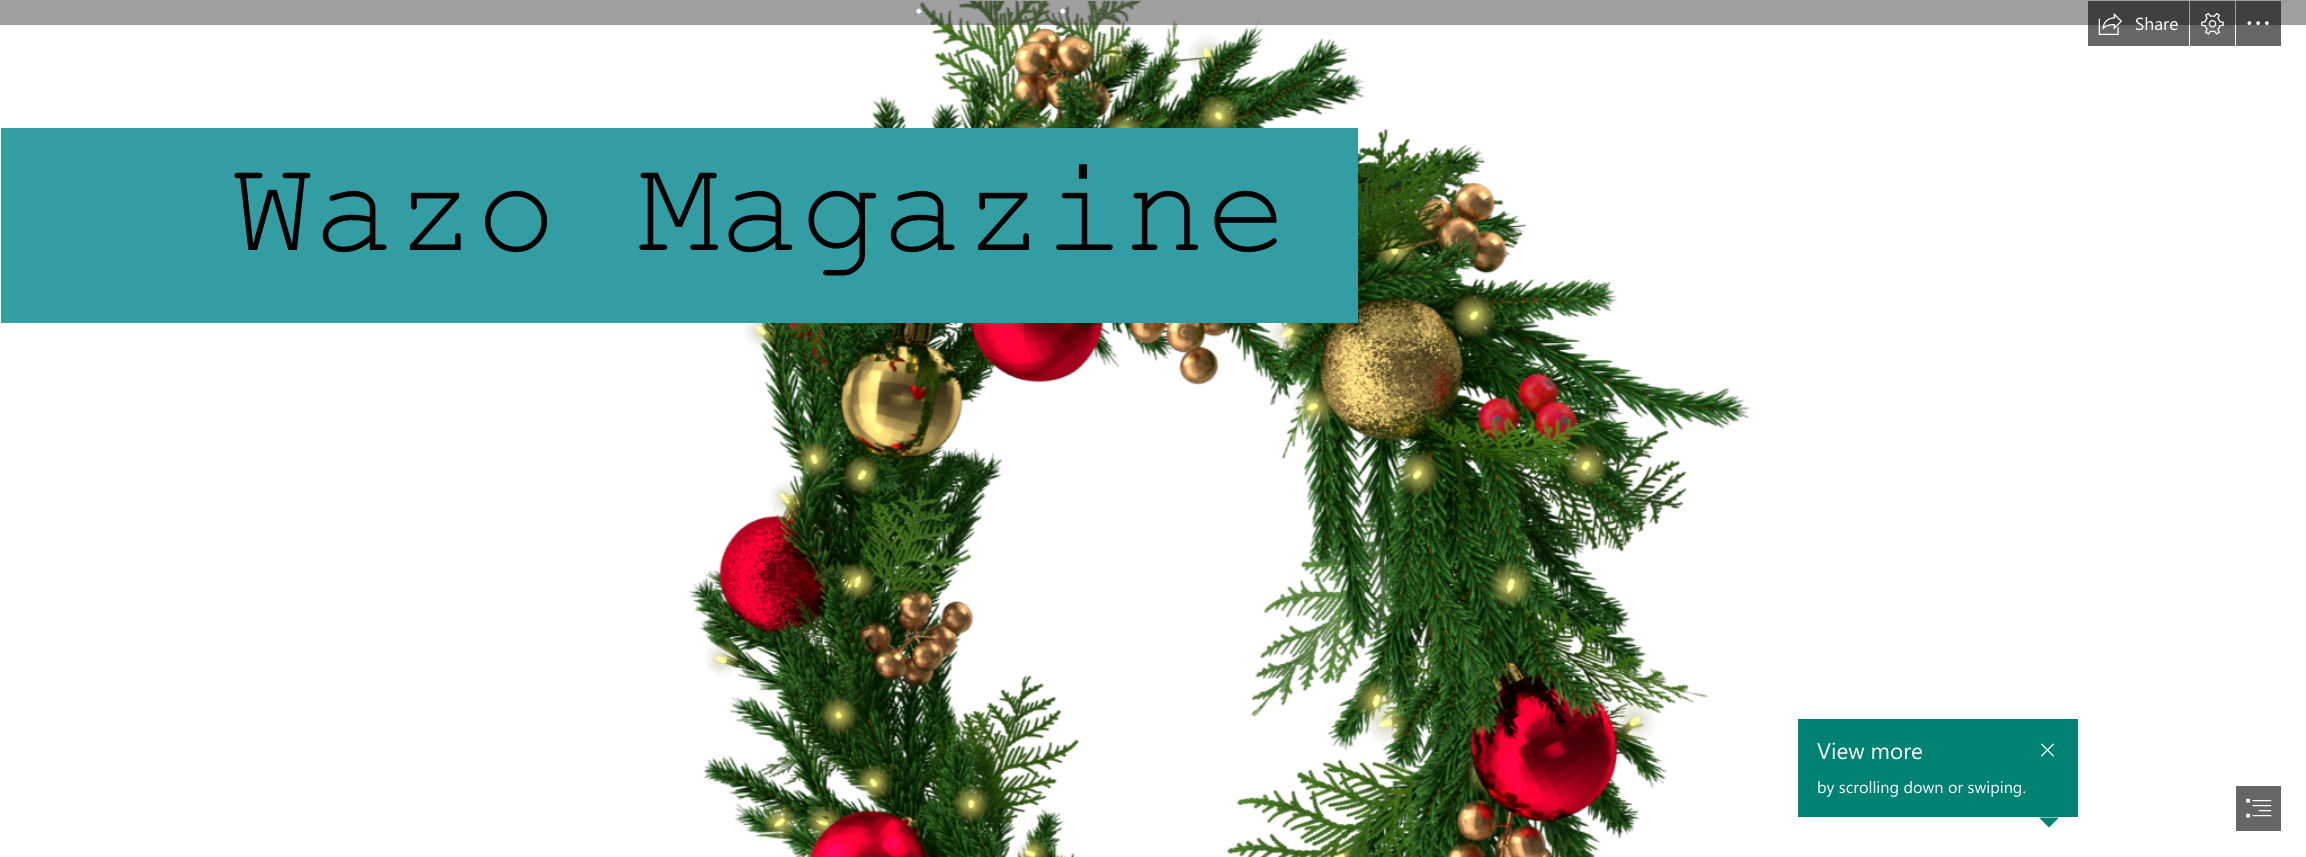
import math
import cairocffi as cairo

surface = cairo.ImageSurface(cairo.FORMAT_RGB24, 2306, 857)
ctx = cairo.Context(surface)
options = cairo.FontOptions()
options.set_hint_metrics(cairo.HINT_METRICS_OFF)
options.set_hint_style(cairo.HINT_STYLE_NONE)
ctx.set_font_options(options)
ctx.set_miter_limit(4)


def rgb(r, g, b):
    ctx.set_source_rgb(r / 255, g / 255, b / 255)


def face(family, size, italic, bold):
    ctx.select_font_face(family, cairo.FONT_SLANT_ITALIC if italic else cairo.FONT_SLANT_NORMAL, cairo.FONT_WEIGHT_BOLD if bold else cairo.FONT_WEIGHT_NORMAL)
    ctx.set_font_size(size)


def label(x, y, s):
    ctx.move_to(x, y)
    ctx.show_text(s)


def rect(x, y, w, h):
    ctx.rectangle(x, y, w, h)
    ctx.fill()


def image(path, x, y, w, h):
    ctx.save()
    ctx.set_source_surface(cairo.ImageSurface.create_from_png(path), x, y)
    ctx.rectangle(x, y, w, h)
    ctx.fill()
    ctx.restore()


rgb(255, 255, 255)
ctx.paint()
image('image4.png', 689, 1, 1061, 856)
ctx.set_source_rgba(0.251, 0.251, 0.251, 0.5)
rect(0, 0, 2306, 25)
ctx.set_source_rgba(0, 0, 0, 0.6)
rect(2088, 1, 101, 45)
image('image0.png', 2098, 13, 24, 22)
face('Segoe UI', 17.5, 0, 0)
rgb(255, 255, 255)
label(2135, 30, 'Share')
ctx.set_source_rgba(0, 0, 0, 0.6)
rect(2190, 1, 45, 45)
image('image1.png', 2201, 12, 23, 23)
rect(2236, 1, 45, 45)
image('image2.png', 2247, 21, 22, 4)
image('image3.png', 916, 8, 150, 6)
rgb(50, 158, 164)
rect(1, 128, 1357, 195)
face('Courier New', 135.25, 0, 0)
rgb(0, 0, 0)
label(232, 250, 'Wazo Magazine')
rgb(0, 130, 114)
rect(1798, 719, 280, 98)
face('Segoe UI', 22.5, 0, 0)
rgb(255, 255, 255)
label(1817, 759, 'View more')
face('Segoe UI', 16.25, 0, 0)
label(1817, 793, 'by scrolling down or swiping.')
image('image5.png', 2040, 743, 15, 14)
rgb(0, 130, 114)
ctx.new_path()
ctx.move_to(2039, 817.5)
ctx.line_to(2059, 817.5)
ctx.line_to(2049, 827.5)
ctx.close_path()
ctx.fill()
rgb(102, 102, 102)
rect(2236, 786, 45, 45)
image('image6.png', 2246, 798, 26, 20)
surface.write_to_png('render.png')
